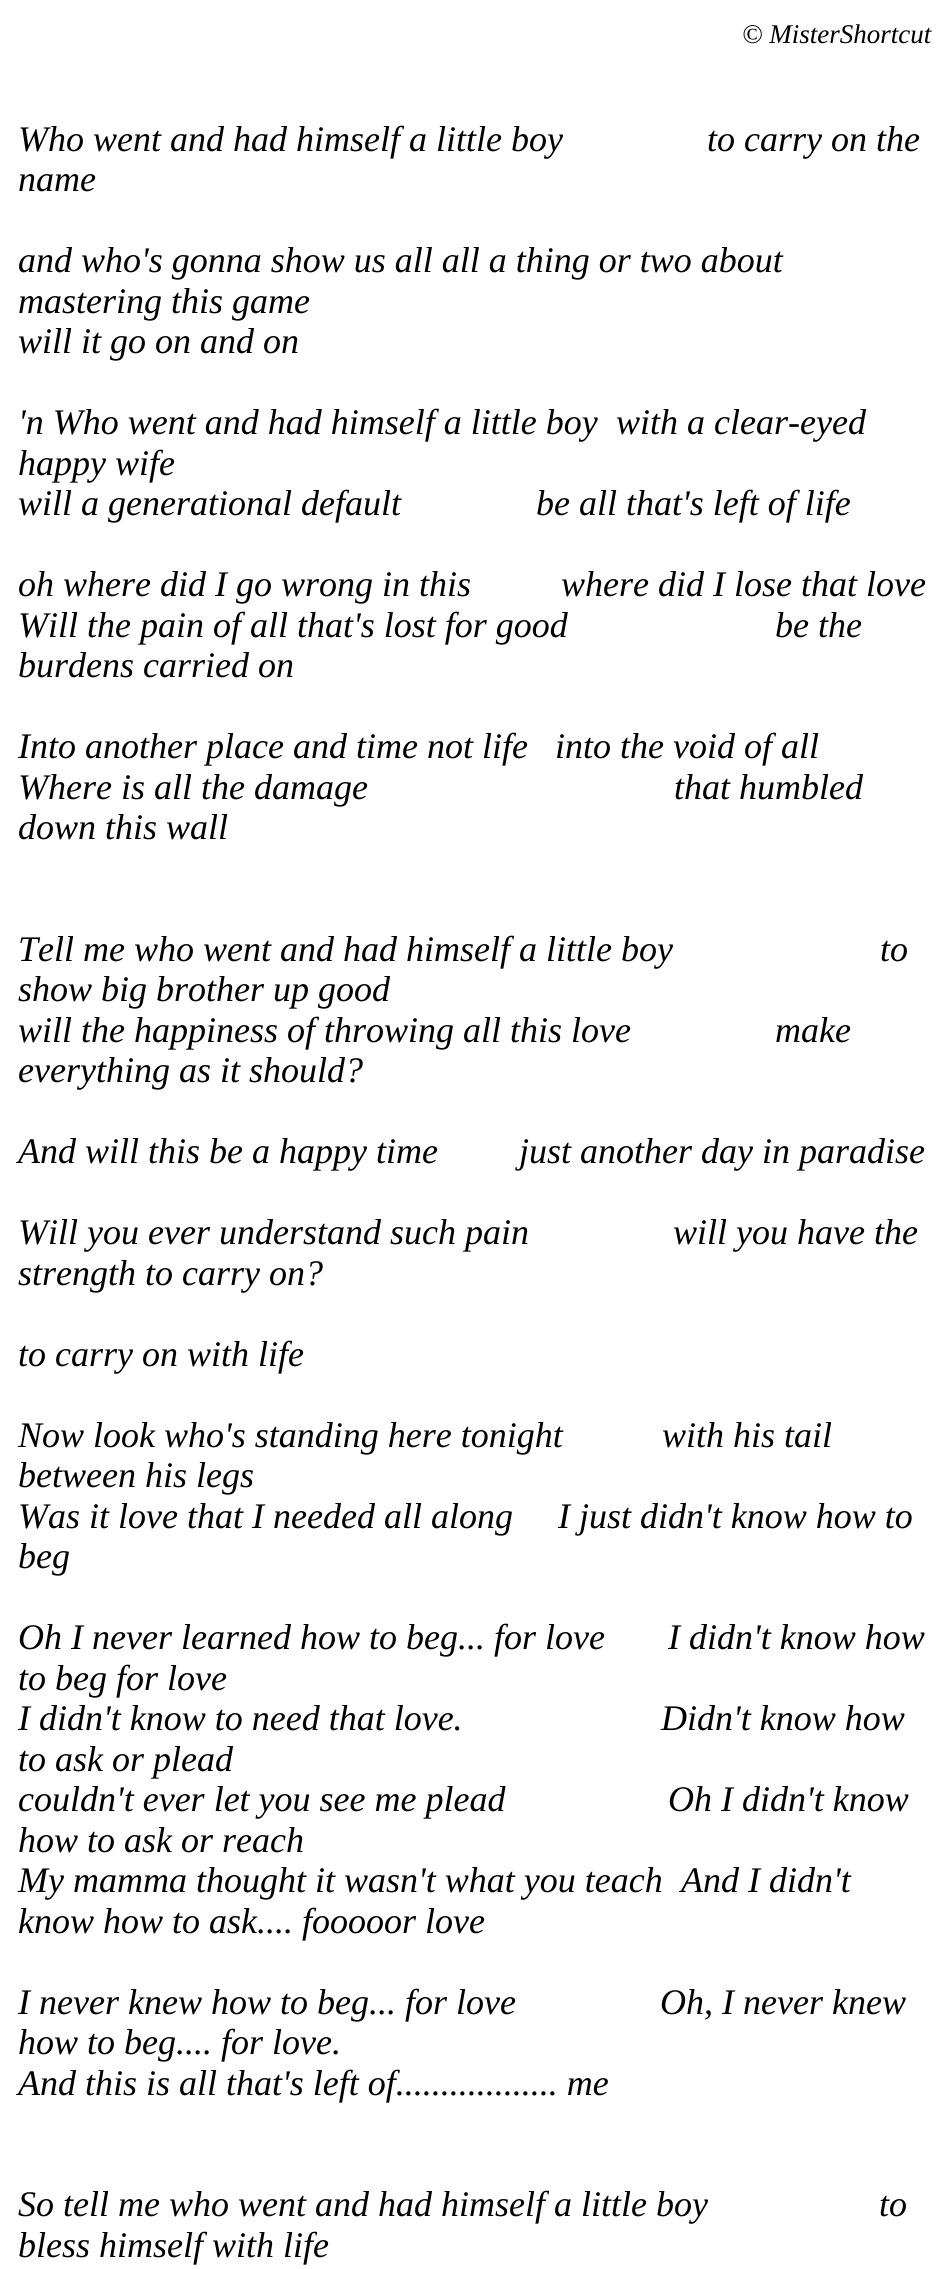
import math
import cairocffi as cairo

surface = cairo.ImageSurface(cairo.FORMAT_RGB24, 948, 2269)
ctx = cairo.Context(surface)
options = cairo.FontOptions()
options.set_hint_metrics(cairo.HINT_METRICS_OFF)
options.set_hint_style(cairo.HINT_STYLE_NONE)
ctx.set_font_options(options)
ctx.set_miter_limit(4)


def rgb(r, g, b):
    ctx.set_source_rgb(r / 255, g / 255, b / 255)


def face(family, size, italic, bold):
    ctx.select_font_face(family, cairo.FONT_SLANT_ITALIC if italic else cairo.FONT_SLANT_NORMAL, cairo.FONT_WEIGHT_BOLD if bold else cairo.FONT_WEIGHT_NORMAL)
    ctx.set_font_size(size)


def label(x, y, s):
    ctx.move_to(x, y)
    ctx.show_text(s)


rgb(255, 255, 255)
ctx.paint()
face('Liberation Serif', 27, 1, 0)
rgb(0, 0, 0)
label(742, 43, '© MisterShortcut')
face('Liberation Serif', 36, 1, 0)
label(18, 151, 'Who went and had himself a little boy')
label(707, 151, 'to carry on the')
label(18, 191, 'name')
label(18, 272, 'and who\'s gonna show us all all a thing or two about')
label(18, 313, 'mastering this game')
label(18, 353, 'will it go on and on')
label(18, 434, '\'n Who went and had himself a little boy')
label(616, 434, 'with a clear-eyed')
label(18, 475, 'happy wife')
label(18, 515, 'will a generational default')
label(536, 515, 'be all that\'s left of life')
label(18, 596, 'oh where did I go wrong in this')
label(561, 596, 'where did I lose that love')
label(18, 637, 'Will the pain of all that\'s lost for good')
label(775, 637, 'be the')
label(18, 677, 'burdens carried on')
label(18, 758, 'Into another place and time not life')
label(555, 758, 'into the void of all')
label(18, 799, 'Where is all the damage')
label(674, 799, 'that humbled')
label(18, 839, 'down this wall')
label(18, 961, 'Tell me who went and had himself a little boy')
label(880, 961, 'to')
label(18, 1001, 'show big brother up good')
label(18, 1042, 'will the happiness of throwing all this love')
label(775, 1042, 'make')
label(18, 1082, 'everything as it should?')
label(18, 1163, 'And will this be a happy time')
label(519, 1163, 'just another day in paradise')
label(18, 1244, 'Will you ever understand such pain')
label(673, 1244, 'will you have the')
label(18, 1285, 'strength to carry on?')
label(18, 1366, 'to carry on with life')
label(18, 1447, 'Now look who\'s standing here tonight')
label(662, 1447, 'with his tail')
label(18, 1487, 'between his legs')
label(18, 1528, 'Was it love that I needed all along')
label(558, 1528, 'I just didn\'t know how to')
label(18, 1568, 'beg')
label(18, 1649, 'Oh I never learned how to beg... for love')
label(668, 1649, 'I didn\'t know how')
label(18, 1690, 'to beg for love')
label(18, 1730, 'I didn\'t know to need that love.')
label(661, 1730, 'Didn\'t know how')
label(18, 1771, 'to ask or plead')
label(18, 1811, 'couldn\'t ever let you see me plead')
label(668, 1811, 'Oh I didn\'t know')
label(18, 1852, 'how to ask or reach')
label(18, 1892, 'My mamma thought it wasn\'t what you teach')
label(681, 1892, 'And I didn\'t')
label(18, 1933, 'know how to ask.... fooooor love')
label(18, 2014, 'I never knew how to beg... for love')
label(660, 2014, 'Oh, I never knew')
label(18, 2054, 'how to beg.... for love.')
label(18, 2095, 'And this is all that\'s left of.................. me')
label(18, 2216, 'So tell me who went and had himself a little boy')
label(879, 2216, 'to')
label(18, 2257, 'bless himself with life')
surface.write_to_png('render.png')
